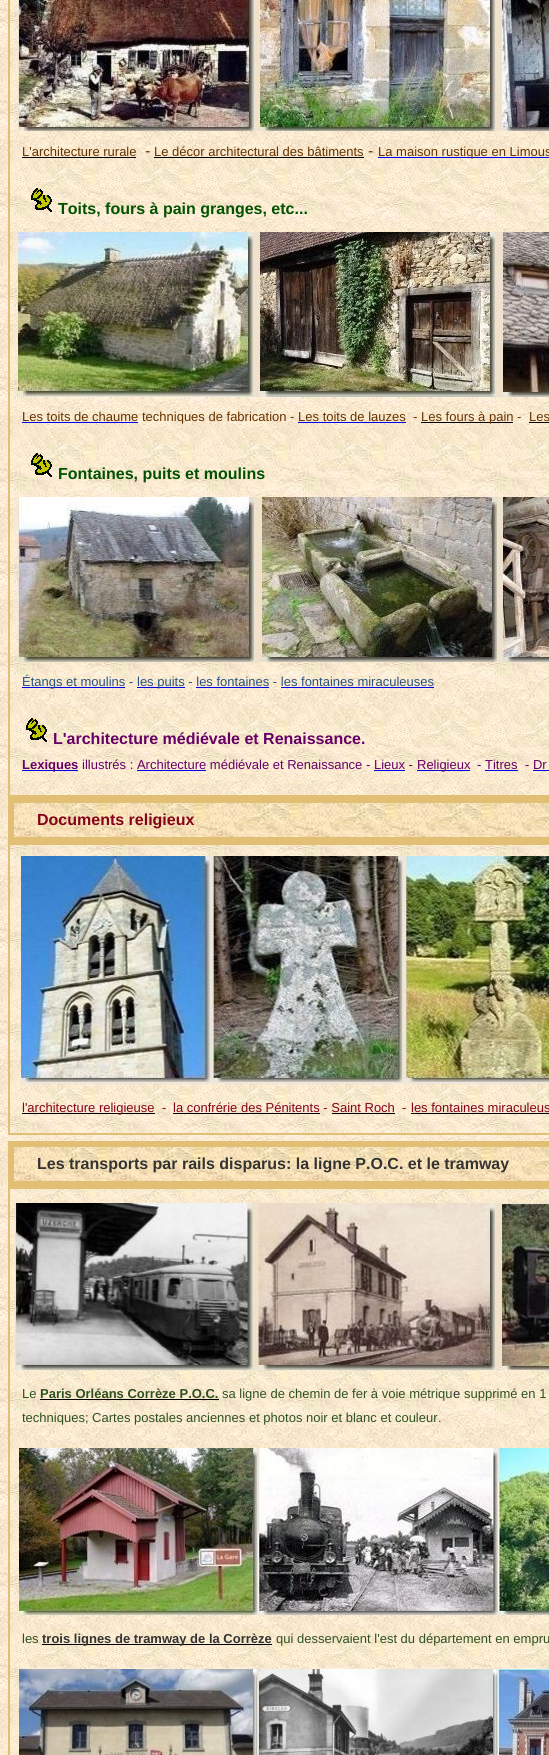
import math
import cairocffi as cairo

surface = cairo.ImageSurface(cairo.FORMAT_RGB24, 549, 1755)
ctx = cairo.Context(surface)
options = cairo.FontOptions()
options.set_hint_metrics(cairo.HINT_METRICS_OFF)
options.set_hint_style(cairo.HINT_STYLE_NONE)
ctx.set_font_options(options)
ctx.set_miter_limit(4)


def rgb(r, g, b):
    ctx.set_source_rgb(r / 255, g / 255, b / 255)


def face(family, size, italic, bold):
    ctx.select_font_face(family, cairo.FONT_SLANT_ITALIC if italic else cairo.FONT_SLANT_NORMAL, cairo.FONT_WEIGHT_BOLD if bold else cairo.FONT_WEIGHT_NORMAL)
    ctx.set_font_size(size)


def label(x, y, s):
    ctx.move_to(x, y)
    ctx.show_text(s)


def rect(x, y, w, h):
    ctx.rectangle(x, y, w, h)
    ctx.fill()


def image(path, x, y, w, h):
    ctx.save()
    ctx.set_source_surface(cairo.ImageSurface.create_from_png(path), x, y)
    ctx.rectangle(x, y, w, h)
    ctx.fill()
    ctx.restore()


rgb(255, 255, 255)
ctx.paint()
image('image0.png', 0, 0, 549, 1755)
rgb(227, 191, 117)
rect(8, 795, 541, 8)
rect(8, 0, 2, 797)
image('image1.png', 18, 0, 531, 131)
face('Liberation Sans', 13, 0, 0)
rgb(102, 51, 0)
label(22, 156, 'L\'architecture rurale')
rgb(0, 0, 0)
rect(22, 157, 114, 1)
face('Liberation Sans', 16, 0, 0)
rgb(102, 51, 0)
label(145, 156, '-')
face('Liberation Sans', 13, 0, 0)
label(154, 156, 'Le décor architectural des bâtiments')
rgb(0, 0, 0)
rect(154, 157, 210, 1)
face('Liberation Sans', 16, 0, 0)
rgb(102, 51, 0)
label(368, 156, '-')
rgb(0, 0, 238)
rect(378, 157, 171, 1)
face('Liberation Sans', 13, 0, 0)
rgb(102, 51, 0)
label(378, 156, 'La maison rustique en Limous')
image('image2.png', 31, 188, 21, 24)
face('Liberation Sans', 16, 0, 1)
rgb(0, 81, 0)
label(58, 214, 'Toits, fours à pain granges, etc...')
image('image3.png', 18, 232, 531, 165)
rgb(0, 0, 238)
rect(22, 422, 116, 1)
face('Liberation Sans', 13, 0, 0)
rgb(102, 51, 0)
label(22, 421, 'Les toits de chaume techniques de fabrication - Les toits de lauzes')
label(413, 421, '-')
rgb(0, 0, 0)
rect(421, 422, 92, 1)
rgb(102, 51, 0)
label(421, 421, 'Les fours à pain -')
label(529, 421, 'Les')
rgb(0, 0, 0)
rect(529, 422, 20, 1)
rgb(0, 0, 238)
rect(298, 422, 108, 1)
image('image4.png', 31, 453, 21, 24)
face('Liberation Sans', 16, 0, 1)
rgb(0, 81, 0)
label(58, 479, 'Fontaines, puits et moulins')
image('image5.png', 18, 497, 531, 165)
rgb(0, 0, 238)
rect(22, 687, 103, 1)
face('Liberation Sans', 13, 0, 0)
rgb(41, 84, 126)
label(22, 686, 'Étangs et moulins -')
rgb(0, 0, 238)
rect(137, 687, 48, 1)
rgb(41, 84, 126)
label(137, 686, 'les puits - les fontaines - les fontaines miraculeuses')
rgb(0, 0, 238)
rect(196, 687, 73, 1)
rect(281, 687, 153, 1)
image('image6.png', 26, 718, 21, 24)
face('Liberation Sans', 16, 0, 1)
rgb(102, 0, 102)
label(53, 744, 'L\'architecture médiévale et Renaissance.')
rgb(0, 0, 238)
rect(22, 770, 56, 1)
face('Liberation Sans', 13, 0, 1)
rgb(102, 0, 102)
label(22, 769, 'Lexiques')
face('Liberation Sans', 13, 0, 0)
label(82, 769, 'illustrés : Architecture médiévale et Renaissance - Lieux -')
rgb(0, 0, 238)
rect(137, 770, 69, 1)
rect(374, 770, 31, 1)
rect(417, 770, 53, 1)
rgb(102, 0, 102)
label(417, 769, 'Religieux')
label(477, 769, '- Titres')
rgb(0, 0, 238)
rect(485, 770, 33, 1)
rgb(102, 0, 102)
label(525, 769, '- Dr')
rgb(0, 0, 238)
rect(533, 770, 16, 1)
rgb(227, 191, 117)
rect(8, 837, 541, 8)
rect(8, 797, 6, 46)
image('image7.png', 14, 803, 535, 34)
face('Liberation Sans', 16, 0, 1)
rgb(133, 3, 26)
label(37, 825, 'Documents religieux')
rgb(227, 191, 117)
rect(8, 1133, 541, 2)
rect(8, 843, 2, 292)
image('image8.png', 21, 856, 528, 228)
rgb(0, 0, 0)
rect(22, 1113, 133, 1)
face('Liberation Sans', 13, 0, 0)
rgb(133, 3, 26)
label(22, 1112, 'l\'architecture religieuse')
label(162, 1112, '-')
label(173, 1112, 'la confrérie des Pénitents - Saint Roch')
rgb(0, 0, 0)
rect(173, 1113, 147, 1)
rgb(133, 3, 26)
label(402, 1112, '-')
label(411, 1112, 'les fontaines miraculeus')
rgb(0, 0, 0)
rect(411, 1113, 138, 1)
rect(332, 1113, 63, 1)
rgb(227, 191, 117)
rect(8, 1141, 541, 6)
rect(8, 1181, 541, 8)
rect(8, 1141, 6, 46)
image('image7.png', 14, 1147, 535, 34)
face('Liberation Sans', 16, 0, 1)
rgb(51, 51, 51)
label(37, 1169, 'Les transports par rails disparus: la ligne P.O.C. et le tramway')
rgb(227, 191, 117)
rect(8, 1187, 2, 568)
image('image9.png', 15, 1203, 534, 167)
face('Liberation Sans', 13, 0, 0)
rgb(46, 82, 29)
label(22, 1398, 'Le')
face('Liberation Sans', 13, 0, 1)
label(40, 1398, 'Paris Orléans Corrèze P.O.C.')
rgb(0, 0, 0)
rect(40, 1399, 179, 1)
face('Liberation Sans', 13, 0, 0)
rgb(46, 82, 29)
label(222, 1398, 'sa ligne de chemin de fer à voie métriqu')
rgb(51, 51, 51)
label(453, 1398, 'e')
rgb(46, 82, 29)
label(464, 1398, 'supprimé en 1')
label(22, 1422, 'techniques; Cartes postales anciennes et photos noir et blanc et couleur')
rgb(84, 79, 27)
label(438, 1422, '.')
image('image10.png', 19, 1448, 530, 167)
rgb(46, 82, 29)
label(22, 1643, 'les')
rgb(0, 0, 0)
rect(42, 1644, 230, 1)
face('Liberation Sans', 13, 0, 1)
rgb(51, 51, 51)
label(42, 1643, 'trois lignes de tramway de la Corrèze')
face('Liberation Sans', 13, 0, 0)
rgb(46, 82, 29)
label(276, 1643, 'qui desservaient l\'est du département en empru')
image('image11.png', 19, 1669, 530, 86)
surface.write_to_png('render.png')
